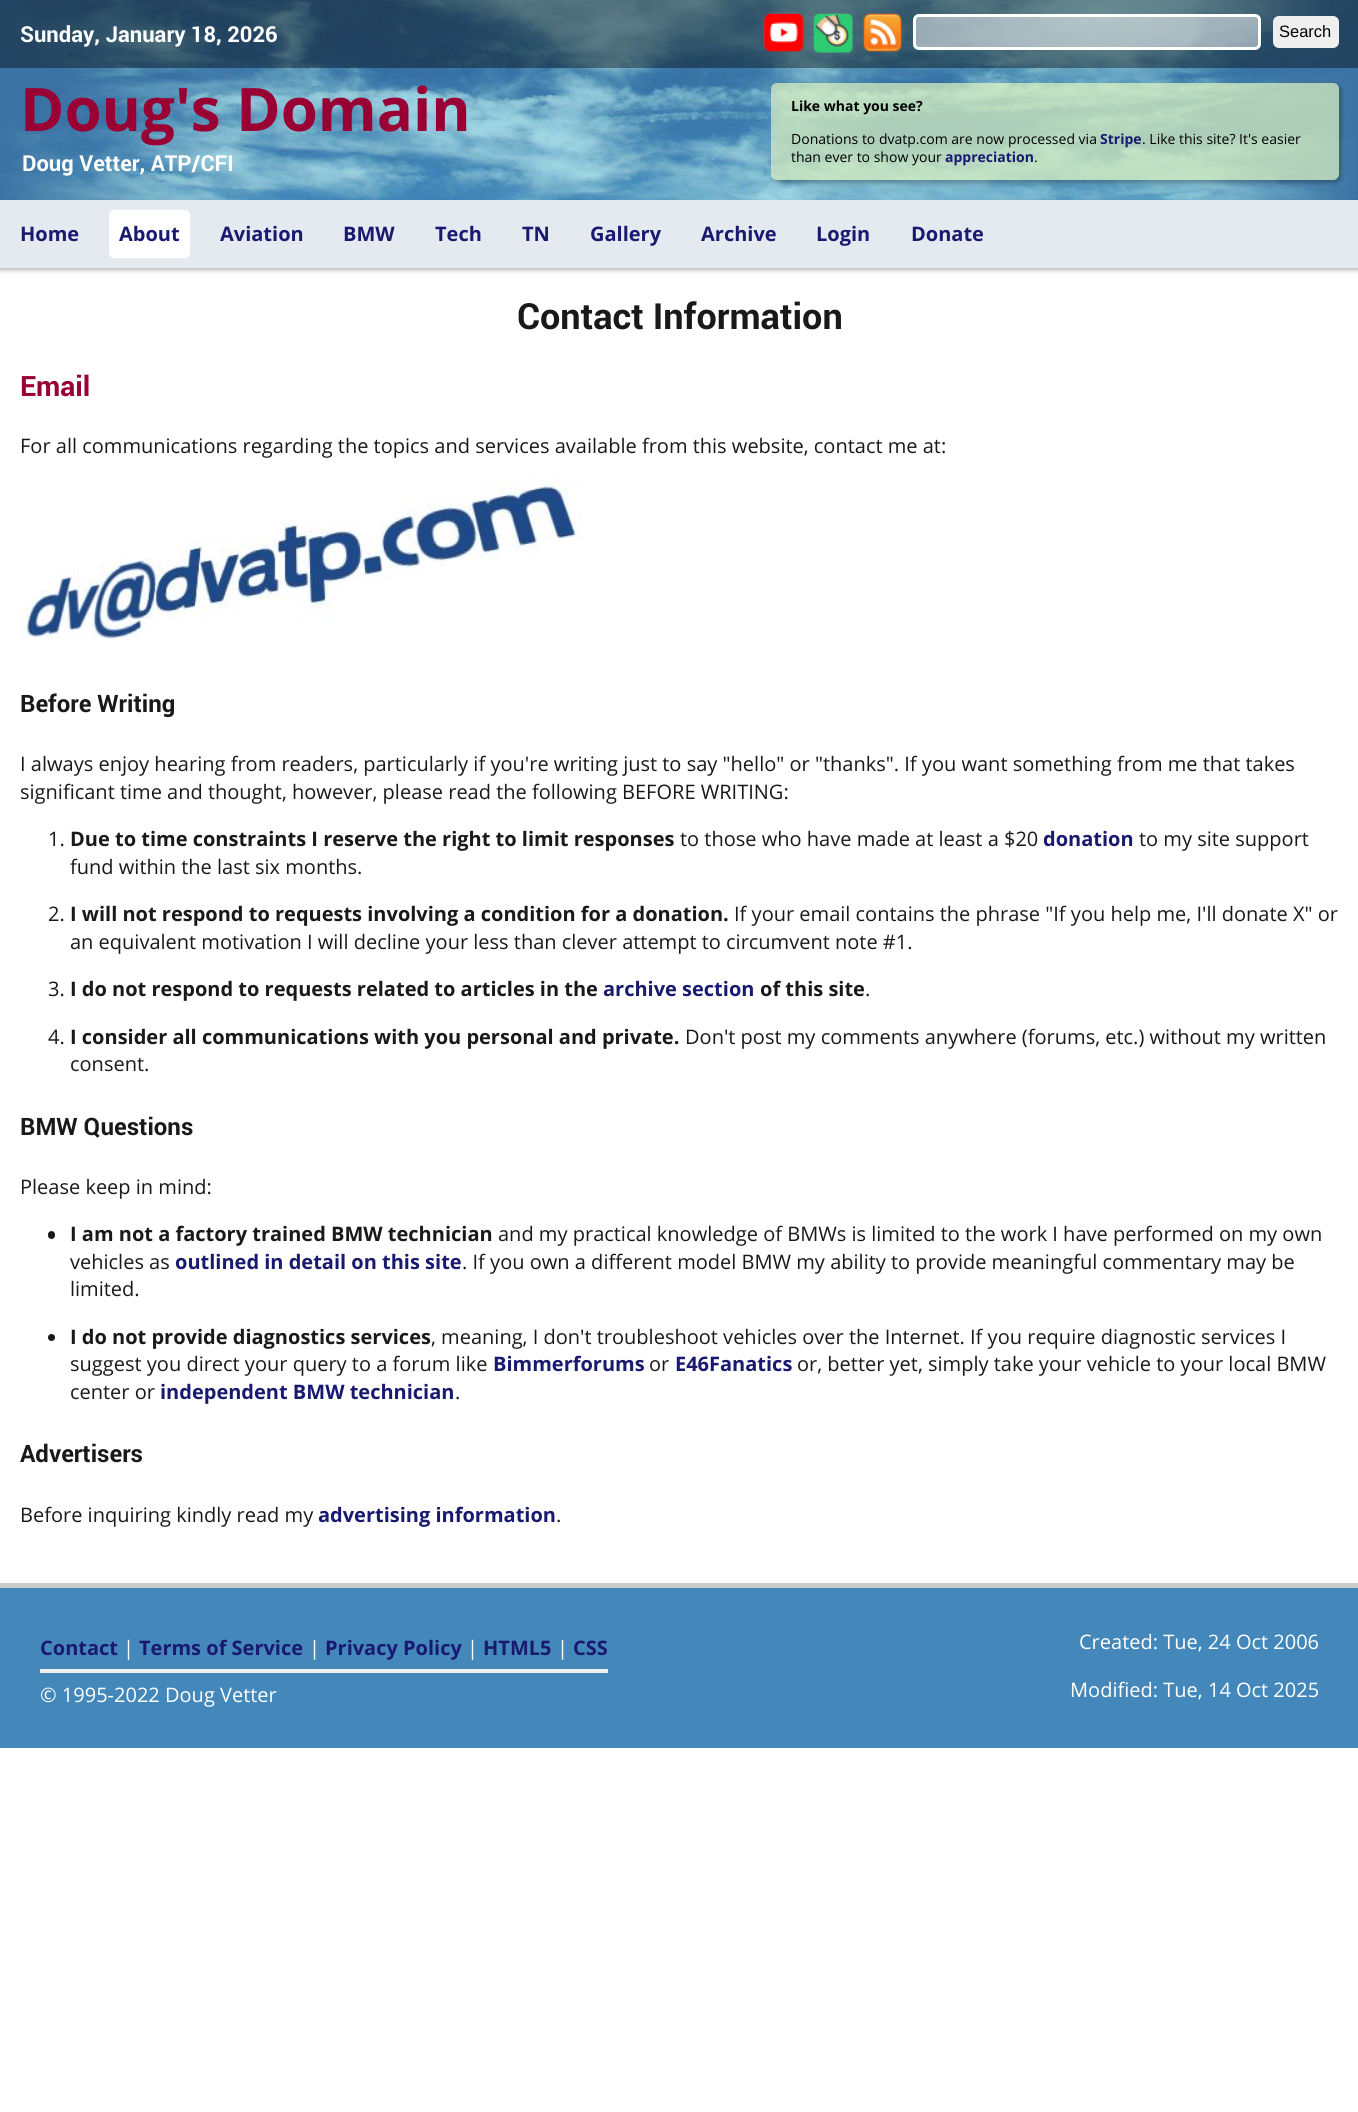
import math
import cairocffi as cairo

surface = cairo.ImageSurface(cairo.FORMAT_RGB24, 1358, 2112)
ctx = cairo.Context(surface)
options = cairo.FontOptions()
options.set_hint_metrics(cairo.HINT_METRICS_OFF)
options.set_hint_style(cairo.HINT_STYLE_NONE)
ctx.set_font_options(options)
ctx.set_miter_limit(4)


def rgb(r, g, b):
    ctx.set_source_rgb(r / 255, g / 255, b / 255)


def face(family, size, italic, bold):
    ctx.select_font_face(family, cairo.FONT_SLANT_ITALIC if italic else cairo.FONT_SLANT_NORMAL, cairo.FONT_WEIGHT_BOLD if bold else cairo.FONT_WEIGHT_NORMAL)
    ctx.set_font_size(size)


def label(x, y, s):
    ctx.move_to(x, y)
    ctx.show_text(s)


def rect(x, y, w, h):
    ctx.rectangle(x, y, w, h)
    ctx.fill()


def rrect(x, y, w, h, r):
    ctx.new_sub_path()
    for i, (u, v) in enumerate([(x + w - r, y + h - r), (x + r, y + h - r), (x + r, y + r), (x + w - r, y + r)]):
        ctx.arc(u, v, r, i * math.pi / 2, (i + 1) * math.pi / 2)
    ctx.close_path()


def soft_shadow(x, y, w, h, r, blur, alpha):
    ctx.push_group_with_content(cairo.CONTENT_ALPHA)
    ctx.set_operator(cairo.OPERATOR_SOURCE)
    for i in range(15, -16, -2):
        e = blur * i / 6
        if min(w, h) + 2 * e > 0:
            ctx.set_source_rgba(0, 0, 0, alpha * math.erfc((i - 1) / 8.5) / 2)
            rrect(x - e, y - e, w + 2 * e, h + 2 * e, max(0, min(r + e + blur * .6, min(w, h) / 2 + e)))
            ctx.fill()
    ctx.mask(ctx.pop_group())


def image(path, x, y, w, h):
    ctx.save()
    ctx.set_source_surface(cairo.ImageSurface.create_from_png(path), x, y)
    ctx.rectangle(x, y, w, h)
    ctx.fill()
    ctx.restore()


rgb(255, 255, 255)
ctx.paint()
image('image0.png', 0, 0, 1358, 200)
ctx.set_source_rgba(0, 0, 0, 0.4)
rect(0, 0, 1358, 68)
face('Roboto', 22, 0, 1)
rgb(255, 255, 255)
label(20, 42, 'Sunday, January 18, 2026')
image('image1.png', 763, 12, 41, 40)
image('image2.png', 813, 13, 40, 40)
image('image3.png', 863, 13, 39, 39)
ctx.set_source_rgba(1, 1, 1, 0.5)
rrect(914.5, 15.5, 345, 33, 4.5)
ctx.fill_preserve()
rgb(255, 255, 255)
ctx.set_line_width(3)
ctx.stroke()
rgb(239, 239, 239)
rrect(1273, 16, 66, 32, 6)
ctx.fill()
face('Liberation Sans', 16.5, 0, 0)
rgb(0, 0, 0)
label(1279, 37, 'Search')
face('Open Sans', 60, 0, 1)
rgb(153, 0, 51)
label(20, 131, 'Doug\'s Domain')
face('Roboto', 22, 0, 1)
rgb(255, 255, 255)
label(22, 171, 'Doug Vetter, ATP/CFI')
ctx.save()
ctx.set_fill_rule(cairo.FILL_RULE_EVEN_ODD)
ctx.new_path()
ctx.move_to(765, 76)
ctx.line_to(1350, 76)
ctx.line_to(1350, 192)
ctx.line_to(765, 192)
ctx.close_path()
ctx.move_to(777, 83)
ctx.line_to(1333, 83)
ctx.curve_to(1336.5, 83, 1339, 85.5, 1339, 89)
ctx.line_to(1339, 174)
ctx.curve_to(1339, 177.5, 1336.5, 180, 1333, 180)
ctx.line_to(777, 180)
ctx.curve_to(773.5, 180, 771, 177.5, 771, 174)
ctx.line_to(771, 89)
ctx.curve_to(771, 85.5, 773.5, 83, 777, 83)
ctx.close_path()
ctx.clip()
rgb(0, 0, 0)
soft_shadow(774, 85, 567, 98, 6, 2.5, 0.3)
ctx.restore()
ctx.set_source_rgba(0.875, 0.949, 0.749, 0.7)
rrect(771, 83, 568, 97, 6)
ctx.fill()
face('Open Sans', 14, 0, 1)
rgb(0, 0, 0)
label(791, 111, 'Like what you see?')
face('Open Sans', 14, 0, 0)
label(791, 144, 'Donations to dvatp.com are now processed via')
face('Open Sans', 14, 0, 1)
rgb(25, 25, 112)
label(1100, 144, 'Stripe')
face('Open Sans', 14, 0, 0)
rgb(0, 0, 0)
label(1142, 144, '. Like this site? It\'s easier')
label(791, 162, 'than ever to show your')
face('Open Sans', 14, 0, 1)
rgb(25, 25, 112)
label(945, 162, 'appreciation')
face('Open Sans', 14, 0, 0)
rgb(0, 0, 0)
label(1034, 162, '.')
rgb(0, 0, 0)
soft_shadow(0, 203, 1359, 67, 0, 2.5, 0.3)
rgb(229, 234, 240)
rect(0, 200, 1358, 68)
face('Open Sans', 20, 0, 1)
rgb(25, 25, 112)
label(20, 241, 'Home')
rgb(255, 255, 255)
rrect(109, 210, 81, 48, 5)
ctx.fill()
rgb(25, 25, 112)
label(119, 241, 'About')
label(220, 241, 'Aviation')
label(343, 241, 'BMW')
label(435, 241, 'Tech')
label(522, 241, 'TN')
label(590, 241, 'Gallery')
label(701, 241, 'Archive')
label(816, 241, 'Login')
label(911, 241, 'Donate')
face('Roboto', 36, 0, 1)
rgb(25, 25, 25)
label(517, 329, 'Contact Information')
face('Roboto', 28, 0, 1)
rgb(153, 0, 51)
label(20, 396, 'Email')
face('Open Sans', 20, 0, 0)
rgb(25, 25, 25)
label(20, 453, 'For all communications regarding the topics and services available from this website, contact me at:')
image('image4.png', 20, 479, 566, 170)
face('Roboto', 24, 0, 1)
label(20, 712, 'Before Writing')
face('Open Sans', 20, 0, 0)
label(20, 771, 'I always enjoy hearing from readers, particularly if you\'re writing just to say "hello" or "thanks". If you want something from me that takes')
label(20, 799, 'significant time and thought, however, please read the following BEFORE WRITING:')
label(48, 846, '1.')
face('Open Sans', 20, 0, 1)
label(70, 846, 'Due to time constraints I reserve the right to limit responses')
face('Open Sans', 20, 0, 0)
label(680, 846, 'to those who have made at least a $20')
face('Open Sans', 20, 0, 1)
rgb(25, 25, 112)
label(1043, 846, 'donation')
face('Open Sans', 20, 0, 0)
rgb(25, 25, 25)
label(1139, 846, 'to my site support')
label(70, 874, 'fund within the last six months.')
label(48, 921, '2.')
face('Open Sans', 20, 0, 1)
label(70, 921, 'I will not respond to requests involving a condition for a donation.')
face('Open Sans', 20, 0, 0)
label(734, 921, 'If your email contains the phrase "If you help me, I\'ll donate X" or')
label(70, 949, 'an equivalent motivation I will decline your less than clever attempt to circumvent note #1.')
label(48, 996, '3.')
face('Open Sans', 20, 0, 1)
label(70, 996, 'I do not respond to requests related to articles in the')
rgb(25, 25, 112)
label(603, 996, 'archive section')
rgb(25, 25, 25)
label(760, 996, 'of this site')
face('Open Sans', 20, 0, 0)
label(865, 996, '.')
label(48, 1044, '4.')
face('Open Sans', 20, 0, 1)
label(70, 1044, 'I consider all communications with you personal and private.')
face('Open Sans', 20, 0, 0)
label(685, 1044, 'Don\'t post my comments anywhere (forums, etc.) without my written')
label(70, 1071, 'consent.')
face('Roboto', 24, 0, 1)
label(20, 1135, 'BMW Questions')
face('Open Sans', 20, 0, 0)
label(20, 1194, 'Please keep in mind:')
rrect(48, 1231, 7, 8, 3.5)
ctx.fill()
face('Open Sans', 20, 0, 1)
label(70, 1241, 'I am not a factory trained BMW technician')
face('Open Sans', 20, 0, 0)
label(498, 1241, 'and my practical knowledge of BMWs is limited to the work I have performed on my own')
label(70, 1269, 'vehicles as')
face('Open Sans', 20, 0, 1)
rgb(25, 25, 112)
label(175, 1269, 'outlined in detail on this site')
face('Open Sans', 20, 0, 0)
rgb(25, 25, 25)
label(462, 1269, '. If you own a different model BMW my ability to provide meaningful commentary may be')
label(70, 1296, 'limited.')
ctx.new_path()
ctx.arc(51.5, 1337.5, 3.5, 0, 2 * math.pi)
ctx.fill()
face('Open Sans', 20, 0, 1)
label(70, 1344, 'I do not provide diagnostics services')
face('Open Sans', 20, 0, 0)
label(431, 1344, ', meaning, I don\'t troubleshoot vehicles over the Internet. If you require diagnostic services I')
label(70, 1371, 'suggest you direct your query to a forum like')
face('Open Sans', 20, 0, 1)
rgb(25, 25, 112)
label(493, 1371, 'Bimmerforums')
face('Open Sans', 20, 0, 0)
rgb(25, 25, 25)
label(649, 1371, 'or')
face('Open Sans', 20, 0, 1)
rgb(25, 25, 112)
label(675, 1371, 'E46Fanatics')
face('Open Sans', 20, 0, 0)
rgb(25, 25, 25)
label(797, 1371, 'or, better yet, simply take your vehicle to your local BMW')
label(70, 1399, 'center or')
face('Open Sans', 20, 0, 1)
rgb(25, 25, 112)
label(160, 1399, 'independent BMW technician')
face('Open Sans', 20, 0, 0)
rgb(25, 25, 25)
label(455, 1399, '.')
face('Roboto', 24, 0, 1)
label(20, 1462, 'Advertisers')
face('Open Sans', 20, 0, 0)
label(20, 1522, 'Before inquiring kindly read my')
face('Open Sans', 20, 0, 1)
rgb(25, 25, 112)
label(318, 1522, 'advertising information')
face('Open Sans', 20, 0, 0)
rgb(25, 25, 25)
label(556, 1522, '.')
rgb(68, 136, 187)
rect(0, 1588, 1358, 160)
rgb(204, 204, 204)
rect(0, 1583, 1358, 5)
rgb(239, 239, 239)
rect(40, 1669, 568, 4)
face('Open Sans', 20, 0, 1)
rgb(25, 25, 112)
label(40, 1655, 'Contact')
face('Open Sans', 20, 0, 0)
rgb(255, 255, 255)
label(123, 1655, '|')
face('Open Sans', 20, 0, 1)
rgb(25, 25, 112)
label(139, 1655, 'Terms of Service')
face('Open Sans', 20, 0, 0)
rgb(255, 255, 255)
label(309, 1655, '|')
face('Open Sans', 20, 0, 1)
rgb(25, 25, 112)
label(325, 1655, 'Privacy Policy')
face('Open Sans', 20, 0, 0)
rgb(255, 255, 255)
label(467, 1655, '|')
face('Open Sans', 20, 0, 1)
rgb(25, 25, 112)
label(483, 1655, 'HTML5')
face('Open Sans', 20, 0, 0)
rgb(255, 255, 255)
label(557, 1655, '|')
face('Open Sans', 20, 0, 1)
rgb(25, 25, 112)
label(573, 1655, 'CSS')
face('Open Sans', 20, 0, 0)
rgb(255, 255, 255)
label(40, 1702, '© 1995-2022 Doug Vetter')
label(1079, 1649, 'Created: Tue, 24 Oct 2006')
label(1070, 1697, 'Modified: Tue, 14 Oct 2025')
surface.write_to_png('render.png')
